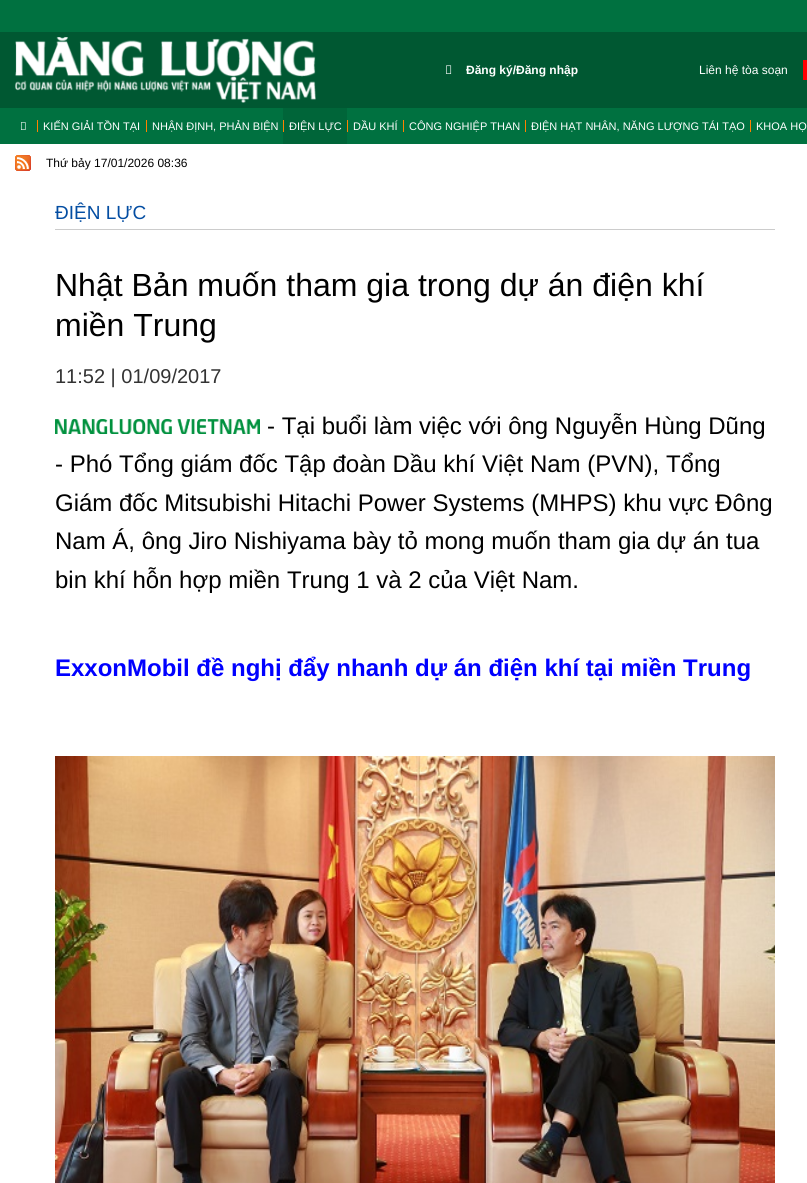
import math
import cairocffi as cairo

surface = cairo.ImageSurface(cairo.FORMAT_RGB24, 807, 1183)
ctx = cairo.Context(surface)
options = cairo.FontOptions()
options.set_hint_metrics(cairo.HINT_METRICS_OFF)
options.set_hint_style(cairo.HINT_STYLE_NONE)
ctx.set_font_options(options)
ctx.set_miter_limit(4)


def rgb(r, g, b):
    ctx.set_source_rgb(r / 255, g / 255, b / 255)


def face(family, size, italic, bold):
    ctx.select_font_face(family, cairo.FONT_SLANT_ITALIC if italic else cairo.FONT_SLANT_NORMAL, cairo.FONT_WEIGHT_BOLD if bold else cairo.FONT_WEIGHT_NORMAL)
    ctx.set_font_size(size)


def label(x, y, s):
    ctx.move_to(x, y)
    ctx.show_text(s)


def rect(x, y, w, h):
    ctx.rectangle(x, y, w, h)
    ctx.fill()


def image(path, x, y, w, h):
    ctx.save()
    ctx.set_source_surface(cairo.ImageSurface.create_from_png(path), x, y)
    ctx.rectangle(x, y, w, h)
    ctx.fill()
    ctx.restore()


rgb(255, 255, 255)
ctx.paint()
rgb(0, 113, 64)
rect(0, 0, 807, 32)
rgb(0, 88, 50)
rect(0, 32, 807, 76)
image('image0.png', 15, 37, 301, 66)
image('image1.png', 446, 65, 6, 9)
face('Liberation Sans', 12, 0, 1)
rgb(255, 255, 255)
label(466, 74, 'Đăng ký/Đăng nhập')
face('Liberation Sans', 12, 0, 0)
label(699, 74, 'Liên hệ tòa soạn')
rgb(254, 0, 2)
rect(803, 60, 4, 20)
rgb(0, 113, 64)
rect(0, 108, 807, 36)
image('image2.png', 21, 122, 5, 8)
face('Liberation Sans', 11, 0, 0)
rgb(255, 255, 255)
label(43, 130, 'KIẾN GIẢI TỒN TẠI')
rgb(255, 128, 0)
rect(37, 120, 1, 12)
rgb(255, 255, 255)
label(152, 130, 'NHẬN ĐỊNH, PHẢN BIỆN')
rgb(255, 128, 0)
rect(146, 120, 1, 12)
rgb(0, 101, 57)
rect(283, 108, 64, 36)
rgb(255, 255, 255)
label(289, 130, 'ĐIỆN LỰC')
rgb(255, 128, 0)
rect(283, 120, 1, 12)
rgb(255, 255, 255)
label(353, 130, 'DẦU KHÍ')
rgb(255, 128, 0)
rect(347, 120, 1, 12)
rgb(255, 255, 255)
label(409, 130, 'CÔNG NGHIỆP THAN')
rgb(255, 128, 0)
rect(403, 120, 1, 12)
rgb(255, 255, 255)
label(531, 130, 'ĐIỆN HẠT NHÂN, NĂNG LƯỢNG TÁI TẠO')
rgb(255, 128, 0)
rect(525, 120, 1, 12)
rgb(255, 255, 255)
label(756, 130, 'KHOA HỌ')
rgb(255, 128, 0)
rect(750, 120, 1, 12)
image('image3.png', 15, 155, 16, 16)
face('Liberation Sans', 12, 0, 0)
rgb(0, 0, 0)
label(46, 167, 'Thứ bảy 17/01/2026 08:36')
rgb(204, 204, 204)
rect(55, 229, 720, 1)
face('Liberation Sans', 19, 0, 0)
rgb(3, 77, 162)
label(55, 219, 'ĐIỆN LỰC')
face('Liberation Sans', 32, 0, 0)
rgb(0, 0, 0)
label(55, 296, 'Nhật Bản muốn tham gia trong dự án điện khí')
label(55, 336, 'miền Trung')
face('Liberation Sans', 20, 0, 0)
rgb(51, 51, 51)
label(55, 383, '11:52 | 01/09/2017')
image('image4.png', 55, 419, 205, 15)
face('Liberation Sans', 24, 0, 0)
rgb(0, 0, 0)
label(267, 434, '- Tại buổi làm việc với ông Nguyễn Hùng Dũng')
label(55, 472, '- Phó Tổng giám đốc Tập đoàn Dầu khí Việt Nam (PVN), Tổng')
label(55, 511, 'Giám đốc Mitsubishi Hitachi Power Systems (MHPS) khu vực Đông')
label(55, 549, 'Nam Á, ông Jiro Nishiyama bày tỏ mong muốn tham gia dự án tua')
label(55, 588, 'bin khí hỗn hợp miền Trung 1 và 2 của Việt Nam.')
face('Liberation Sans', 24, 0, 1)
rgb(0, 0, 255)
label(55, 676, 'ExxonMobil đề nghị đẩy nhanh dự án điện khí tại miền Trung')
image('image5.png', 55, 756, 720, 427)
surface.write_to_png('render.png')
